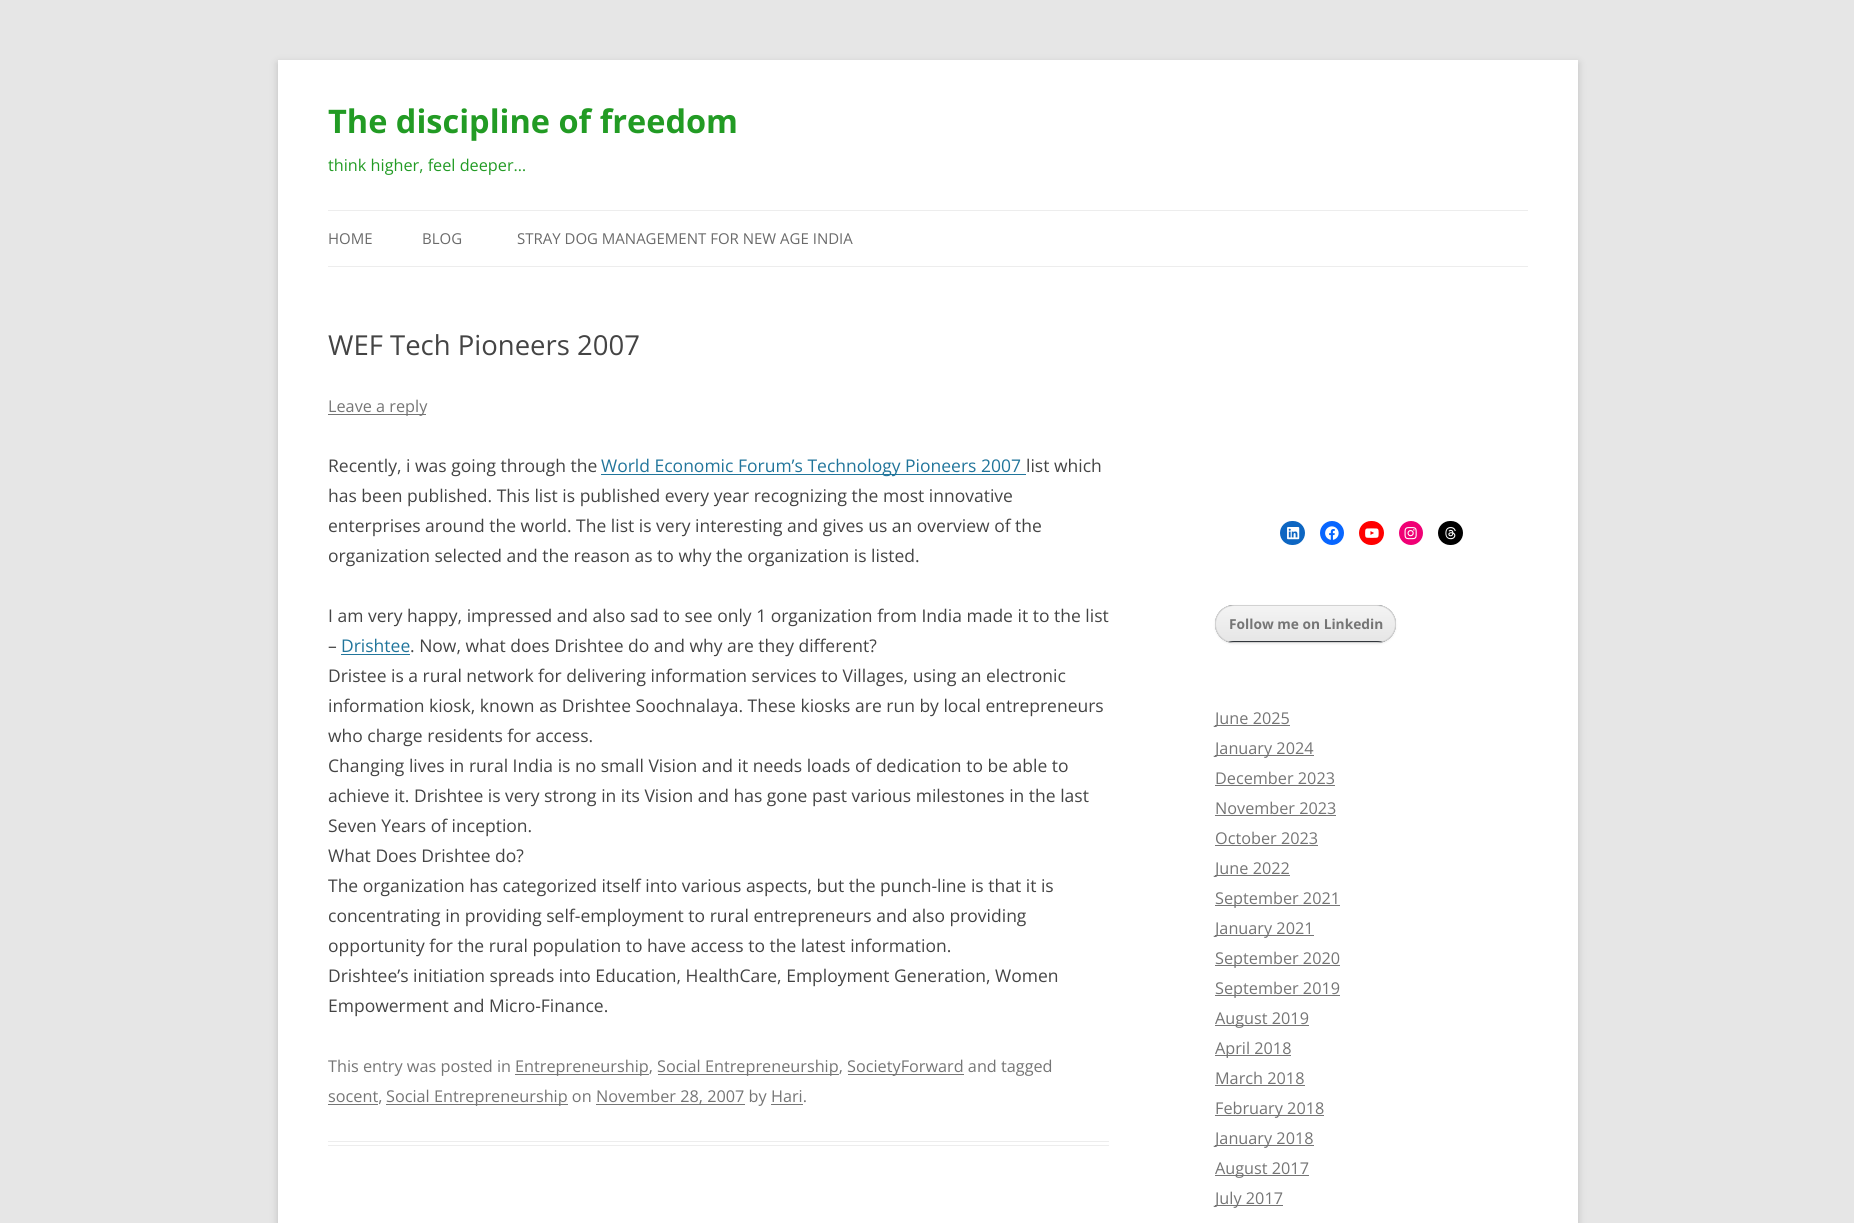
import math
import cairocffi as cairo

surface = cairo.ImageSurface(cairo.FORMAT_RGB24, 1854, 1223)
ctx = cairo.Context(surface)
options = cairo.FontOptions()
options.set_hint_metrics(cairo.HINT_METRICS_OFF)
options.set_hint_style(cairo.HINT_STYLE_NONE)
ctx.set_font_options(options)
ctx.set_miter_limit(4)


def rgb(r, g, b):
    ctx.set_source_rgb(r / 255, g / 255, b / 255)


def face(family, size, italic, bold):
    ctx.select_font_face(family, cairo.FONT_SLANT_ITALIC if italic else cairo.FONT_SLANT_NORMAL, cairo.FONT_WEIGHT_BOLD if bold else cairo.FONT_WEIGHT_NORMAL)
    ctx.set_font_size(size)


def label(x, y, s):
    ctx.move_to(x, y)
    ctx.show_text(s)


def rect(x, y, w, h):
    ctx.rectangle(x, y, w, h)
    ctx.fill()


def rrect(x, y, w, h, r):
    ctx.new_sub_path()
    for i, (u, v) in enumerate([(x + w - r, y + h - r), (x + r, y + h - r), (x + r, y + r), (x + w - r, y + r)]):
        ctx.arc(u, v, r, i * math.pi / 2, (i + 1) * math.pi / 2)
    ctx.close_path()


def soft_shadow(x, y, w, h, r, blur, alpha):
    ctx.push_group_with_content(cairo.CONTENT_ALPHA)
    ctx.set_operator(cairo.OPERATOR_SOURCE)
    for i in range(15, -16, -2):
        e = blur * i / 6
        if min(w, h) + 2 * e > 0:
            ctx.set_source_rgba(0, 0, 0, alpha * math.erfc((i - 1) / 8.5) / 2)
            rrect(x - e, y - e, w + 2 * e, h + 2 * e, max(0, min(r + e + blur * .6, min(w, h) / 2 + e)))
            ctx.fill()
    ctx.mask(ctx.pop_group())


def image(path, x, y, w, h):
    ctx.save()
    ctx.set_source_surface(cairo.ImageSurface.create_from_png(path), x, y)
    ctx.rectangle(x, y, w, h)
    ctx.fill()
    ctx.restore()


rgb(230, 230, 230)
ctx.paint()
rgb(100, 100, 100)
soft_shadow(278, 63, 1300, 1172, 0, 4, 0.3)
rgb(255, 255, 255)
rect(278, 60, 1300, 1163)
face('Open Sans', 32.5, 0, 1)
rgb(34, 155, 36)
label(328, 133, 'The discipline of freedom')
face('Open Sans', 16.25, 0, 0)
label(328, 171, 'think higher, feel deeper…')
rgb(237, 237, 237)
rect(328, 210, 1200, 1)
rect(328, 266, 1200, 1)
face('Open Sans', 15, 0, 0)
rgb(106, 106, 106)
label(328, 244, 'HOME')
label(422, 244, 'BLOG')
label(517, 244, 'STRAY DOG MANAGEMENT FOR NEW AGE INDIA')
rgb(237, 237, 237)
rect(328, 1141, 781, 1)
rect(328, 1145, 781, 1)
face('Open Sans', 27.5, 0, 0)
rgb(68, 68, 68)
label(328, 355, 'WEF Tech Pioneers 2007')
rgb(117, 117, 117)
rect(328, 414, 98, 1)
face('Open Sans', 16.25, 0, 0)
label(328, 412, 'Leave a reply')
face('Open Sans', 17.5, 0, 0)
rgb(68, 68, 68)
label(328, 472, 'Recently, i was going through the')
rgb(33, 117, 155)
rect(601, 474, 425, 1)
label(601, 472, 'World Economic Forum’s Technology Pioneers 2007')
rgb(68, 68, 68)
label(1026, 472, 'list which')
label(328, 502, 'has been published. This list is published every year recognizing the most innovative')
label(328, 532, 'enterprises around the world. The list is very interesting and gives us an overview of the')
label(328, 562, 'organization selected and the reason as to why the organization is listed.')
label(328, 622, 'I am very happy, impressed and also sad to see only 1 organization from India made it to the list')
label(328, 652, '–')
rgb(33, 117, 155)
label(341, 652, 'Drishtee')
rect(341, 654, 69, 1)
rgb(68, 68, 68)
label(410, 652, '. Now, what does Drishtee do and why are they different?')
label(328, 682, 'Dristee is a rural network for delivering information services to Villages, using an electronic')
label(328, 712, 'information kiosk, known as Drishtee Soochnalaya. These kiosks are run by local entrepreneurs')
label(328, 742, 'who charge residents for access.')
label(328, 772, 'Changing lives in rural India is no small Vision and it needs loads of dedication to be able to')
label(328, 802, 'achieve it. Drishtee is very strong in its Vision and has gone past various milestones in the last')
label(328, 832, 'Seven Years of inception.')
label(328, 862, 'What Does Drishtee do?')
label(328, 892, 'The organization has categorized itself into various aspects, but the punch-line is that it is')
label(328, 922, 'concentrating in providing self-employment to rural entrepreneurs and also providing')
label(328, 952, 'opportunity for the rural population to have access to the latest information.')
label(328, 982, 'Drishtee’s initiation spreads into Education, HealthCare, Employment Generation, Women')
label(328, 1012, 'Empowerment and Micro-Finance.')
face('Open Sans', 16.25, 0, 0)
rgb(117, 117, 117)
label(328, 1072, 'This entry was posted in')
rect(515, 1074, 134, 1)
label(515, 1072, 'Entrepreneurship,')
rect(658, 1074, 181, 1)
label(657, 1072, 'Social Entrepreneurship,')
rect(848, 1074, 116, 1)
label(847, 1072, 'SocietyForward and tagged')
rect(328, 1104, 50, 1)
label(328, 1102, 'socent,')
rect(386, 1104, 182, 1)
label(386, 1102, 'Social Entrepreneurship on')
rect(596, 1104, 149, 1)
label(596, 1102, 'November 28, 2007 by Hari.')
rect(771, 1104, 32, 1)
rgb(13, 102, 194)
rrect(1280, 521, 25, 24, 12)
ctx.fill()
image('image0.png', 1287, 527, 13, 13)
rgb(8, 102, 255)
ctx.arc(1332, 533, 12, 0, 2 * math.pi)
ctx.fill()
image('image1.png', 1325, 526, 14, 14)
rgb(255, 0, 0)
rrect(1359, 521, 25, 24, 12)
ctx.fill()
image('image2.png', 1365, 528, 14, 10)
rgb(240, 0, 117)
ctx.arc(1411, 533, 12, 0, 2 * math.pi)
ctx.fill()
image('image3.png', 1404, 527, 13, 13)
rgb(0, 0, 0)
rrect(1438, 521, 25, 24, 12)
ctx.fill()
image('image4.png', 1445, 527, 11, 13)
rgb(64, 64, 64)
soft_shadow(1215, 606, 181, 38, 19, 1, 0.1)
rgb(50, 55, 60)
rrect(1215, 605, 181, 38, 19)
ctx.fill()
ctx.save()
rrect(1215, 605, 181, 38, 19)
ctx.clip()
gradient = cairo.LinearGradient(1306, 606, 1306, 641)
gradient.add_color_stop_rgba(0, 0.957, 0.957, 0.957, 1)
gradient.add_color_stop_rgba(1, 0.902, 0.902, 0.902, 1)
ctx.set_source(gradient)
rect(1215, 606, 181, 35)
ctx.restore()
rrect(1215.5, 605.5, 180, 37, 18.5)
rgb(210, 210, 210)
ctx.set_line_width(1)
ctx.stroke()
face('Open Sans', 13.75, 0, 1)
rgb(117, 117, 117)
label(1229, 629, 'Follow me on Linkedin')
rect(1215, 725, 75, 1)
face('Open Sans', 16.25, 0, 0)
label(1215, 724, 'June 2025')
rect(1215, 755, 99, 1)
label(1215, 754, 'January 2024')
label(1215, 784, 'December 2023')
rect(1215, 785, 120, 1)
label(1215, 814, 'November 2023')
rect(1215, 815, 121, 1)
label(1215, 844, 'October 2023')
rect(1215, 845, 103, 1)
rect(1215, 875, 75, 1)
label(1215, 874, 'June 2022')
rect(1215, 905, 125, 1)
label(1215, 904, 'September 2021')
rect(1215, 935, 99, 1)
label(1215, 934, 'January 2021')
rect(1215, 965, 125, 1)
label(1215, 964, 'September 2020')
rect(1215, 995, 125, 1)
label(1215, 994, 'September 2019')
rect(1215, 1025, 94, 1)
label(1215, 1024, 'August 2019')
rect(1215, 1055, 76, 1)
label(1215, 1054, 'April 2018')
label(1215, 1084, 'March 2018')
rect(1215, 1085, 90, 1)
rect(1215, 1115, 109, 1)
label(1215, 1114, 'February 2018')
rect(1215, 1145, 99, 1)
label(1215, 1144, 'January 2018')
rect(1215, 1175, 94, 1)
label(1215, 1174, 'August 2017')
rect(1215, 1205, 68, 1)
label(1215, 1204, 'July 2017')
surface.write_to_png('render.png')
